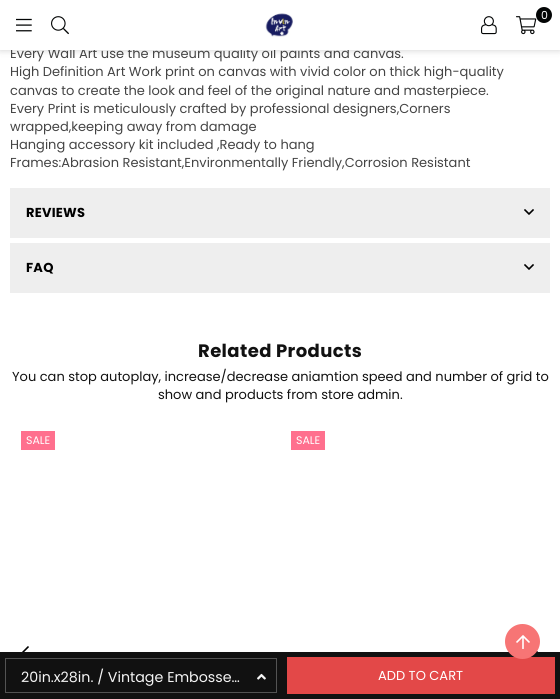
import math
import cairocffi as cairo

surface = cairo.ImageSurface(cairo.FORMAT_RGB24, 560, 699)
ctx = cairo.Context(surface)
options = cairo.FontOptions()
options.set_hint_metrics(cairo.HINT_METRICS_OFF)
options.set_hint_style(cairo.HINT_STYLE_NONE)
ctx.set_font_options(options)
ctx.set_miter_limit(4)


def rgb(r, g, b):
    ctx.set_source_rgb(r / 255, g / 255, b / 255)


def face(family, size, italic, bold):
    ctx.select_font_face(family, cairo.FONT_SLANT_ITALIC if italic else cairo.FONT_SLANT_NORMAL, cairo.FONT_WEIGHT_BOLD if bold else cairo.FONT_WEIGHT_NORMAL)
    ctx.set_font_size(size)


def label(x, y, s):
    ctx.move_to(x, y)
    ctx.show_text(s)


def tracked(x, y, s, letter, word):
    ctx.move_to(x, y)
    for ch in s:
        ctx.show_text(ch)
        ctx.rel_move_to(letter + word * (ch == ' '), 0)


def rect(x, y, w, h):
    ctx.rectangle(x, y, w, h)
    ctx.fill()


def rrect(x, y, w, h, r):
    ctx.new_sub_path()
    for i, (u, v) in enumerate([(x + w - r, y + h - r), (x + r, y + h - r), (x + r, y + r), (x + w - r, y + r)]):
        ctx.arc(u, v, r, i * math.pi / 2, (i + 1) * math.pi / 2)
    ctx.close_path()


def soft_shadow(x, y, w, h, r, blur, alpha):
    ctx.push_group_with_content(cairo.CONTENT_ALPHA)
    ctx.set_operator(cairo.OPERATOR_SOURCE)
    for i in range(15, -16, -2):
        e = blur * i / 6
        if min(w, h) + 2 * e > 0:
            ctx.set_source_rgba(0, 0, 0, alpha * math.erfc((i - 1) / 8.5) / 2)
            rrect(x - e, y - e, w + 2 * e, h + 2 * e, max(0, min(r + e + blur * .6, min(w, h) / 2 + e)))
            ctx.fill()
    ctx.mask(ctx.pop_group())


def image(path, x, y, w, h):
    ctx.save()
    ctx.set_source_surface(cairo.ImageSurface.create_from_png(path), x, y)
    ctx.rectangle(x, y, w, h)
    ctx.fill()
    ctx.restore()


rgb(255, 255, 255)
ctx.paint()
rgb(0, 0, 0)
soft_shadow(0, 0, 560, 50, 0, 3.5, 0.2)
face('Poppins', 13, 0, 0)
rgb(68, 68, 68)
label(10, 58, 'Every Wall Art use the museum quality oil paints and canvas.')
rgb(255, 255, 255)
rect(0, 0, 560, 50)
image('image0.png', 16, 18, 16, 14)
image('image1.png', 51, 16, 18, 19)
image('image2.png', 265, 13, 28, 24)
image('image3.png', 516, 16, 21, 19)
rgb(3, 5, 5)
ctx.arc(544, 15, 8, 0, 2 * math.pi)
ctx.fill()
face('Poppins', 11, 0, 0)
rgb(255, 255, 255)
label(541, 19, '0')
image('image4.png', 481, 16, 16, 19)
face('Poppins', 13, 0, 0)
rgb(68, 68, 68)
label(10, 76, 'High Definition Art Work print on canvas with vivid color on thick high-quality')
label(10, 95, 'canvas to create the look and feel of the original nature and masterpiece.')
label(10, 113, 'Every Print is meticulously crafted by professional designers,Corners')
label(10, 131, 'wrapped,keeping away from damage')
label(10, 149, 'Hanging accessory kit included ,Ready to hang')
label(10, 167, 'Frames:Abrasion Resistant,Environmentally Friendly,Corrosion Resistant')
rgb(238, 238, 238)
rect(10, 188, 540, 50)
face('Poppins', 13, 0, 1)
rgb(0, 0, 0)
tracked(26, 217, 'REVIEWS', 0.25, 0)
image('image5.png', 524, 209, 10, 6)
rgb(238, 238, 238)
rect(10, 243, 540, 50)
rgb(0, 0, 0)
tracked(26, 272, 'FAQ', 0.25, 0)
image('image5.png', 524, 264, 10, 6)
rgb(17, 17, 17)
rect(0, 652, 560, 47)
ctx.rectangle(5.5, 658.5, 271, 34)
rgb(83, 83, 83)
ctx.set_line_width(1)
ctx.stroke()
face('Poppins', 14.25, 0, 0)
rgb(245, 245, 245)
label(21, 682, '20in.x28in. / Vintage Embosse…')
image('image6.png', 257, 673, 9, 7)
rgb(227, 72, 72)
rect(287, 657, 268, 37)
face('Poppins', 13, 0, 0)
rgb(255, 255, 255)
label(378, 680, 'ADD TO CART')
face('Poppins', 18, 0, 1)
rgb(17, 17, 17)
tracked(198, 357, 'Related Products', 0.4, 0)
face('Poppins', 13, 0, 0)
label(12, 381, 'You can stop autoplay, increase/decrease aniamtion speed and number of grid to')
label(158, 399, 'show and products from store admin.')
rgb(255, 112, 142)
rect(21, 431, 34, 19)
face('Poppins', 11, 0, 0)
rgb(255, 255, 255)
label(26, 444, 'SALE')
rgb(255, 112, 142)
rect(291, 431, 34, 19)
rgb(255, 255, 255)
label(296, 444, 'SALE')
image('image7.png', 22, 646, 7, 6)
image('image8.png', 536, 651, 2, 1)
rgb(247, 117, 117)
ctx.arc(522.5, 641.5, 17.5, 0, 2 * math.pi)
ctx.fill()
image('image9.png', 516, 635, 14, 14)
surface.write_to_png('render.png')
